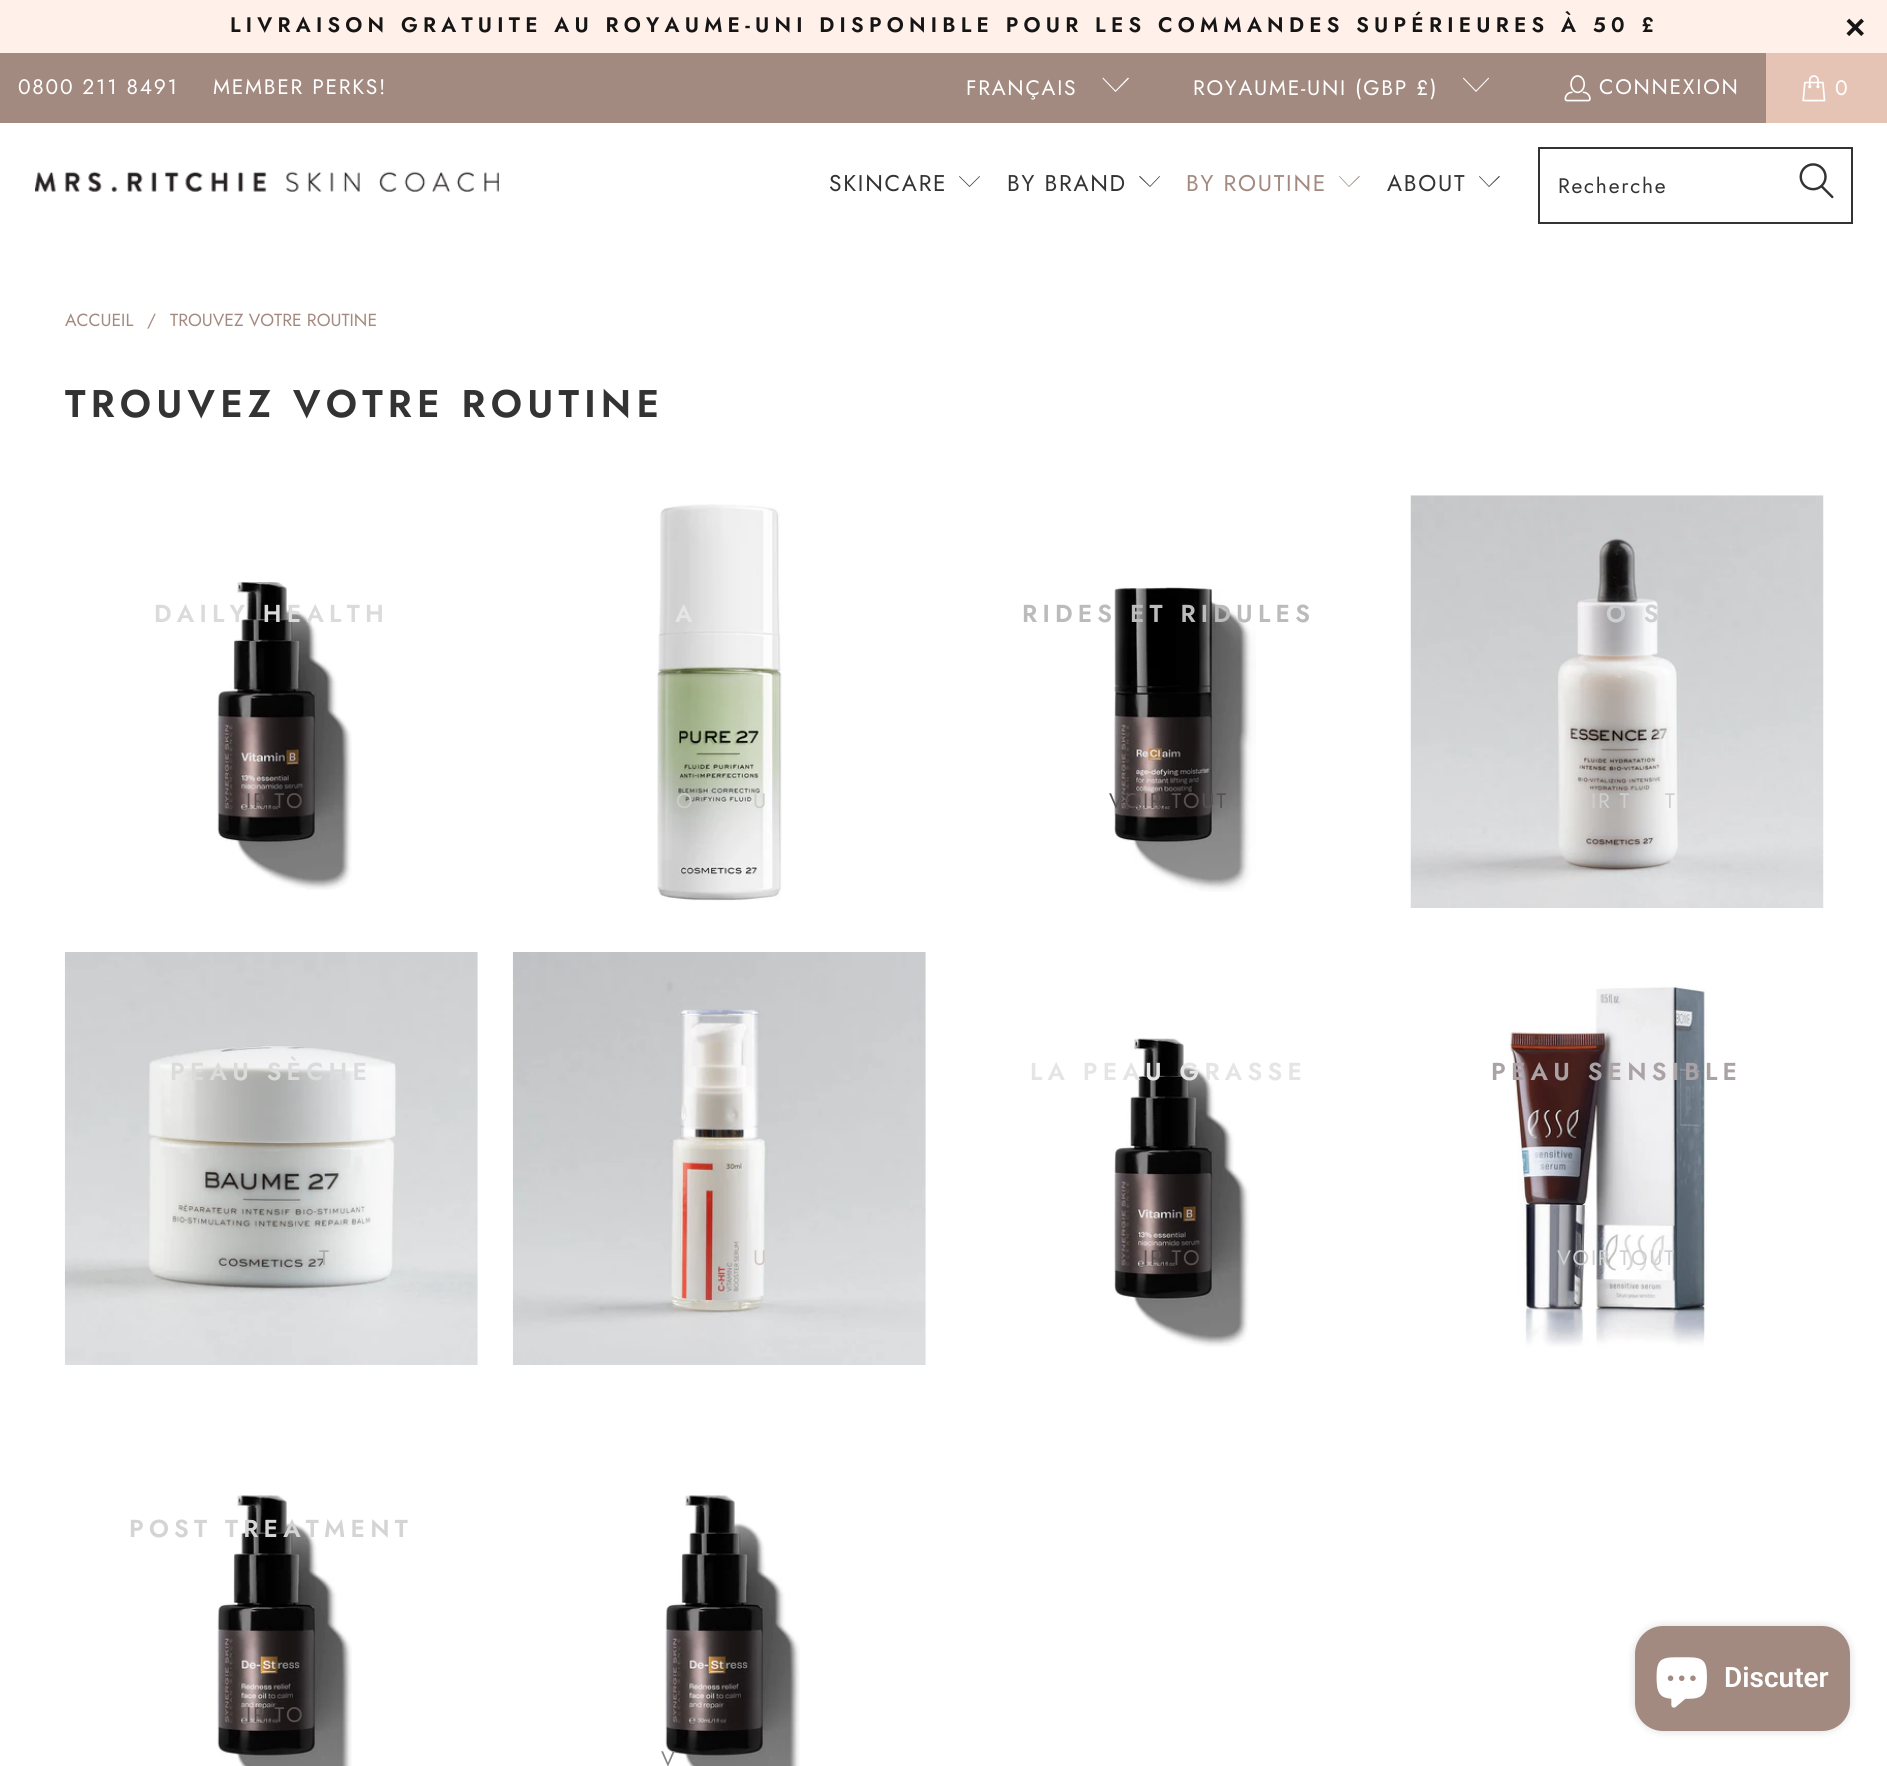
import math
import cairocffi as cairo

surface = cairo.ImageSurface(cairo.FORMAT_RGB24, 1887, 1766)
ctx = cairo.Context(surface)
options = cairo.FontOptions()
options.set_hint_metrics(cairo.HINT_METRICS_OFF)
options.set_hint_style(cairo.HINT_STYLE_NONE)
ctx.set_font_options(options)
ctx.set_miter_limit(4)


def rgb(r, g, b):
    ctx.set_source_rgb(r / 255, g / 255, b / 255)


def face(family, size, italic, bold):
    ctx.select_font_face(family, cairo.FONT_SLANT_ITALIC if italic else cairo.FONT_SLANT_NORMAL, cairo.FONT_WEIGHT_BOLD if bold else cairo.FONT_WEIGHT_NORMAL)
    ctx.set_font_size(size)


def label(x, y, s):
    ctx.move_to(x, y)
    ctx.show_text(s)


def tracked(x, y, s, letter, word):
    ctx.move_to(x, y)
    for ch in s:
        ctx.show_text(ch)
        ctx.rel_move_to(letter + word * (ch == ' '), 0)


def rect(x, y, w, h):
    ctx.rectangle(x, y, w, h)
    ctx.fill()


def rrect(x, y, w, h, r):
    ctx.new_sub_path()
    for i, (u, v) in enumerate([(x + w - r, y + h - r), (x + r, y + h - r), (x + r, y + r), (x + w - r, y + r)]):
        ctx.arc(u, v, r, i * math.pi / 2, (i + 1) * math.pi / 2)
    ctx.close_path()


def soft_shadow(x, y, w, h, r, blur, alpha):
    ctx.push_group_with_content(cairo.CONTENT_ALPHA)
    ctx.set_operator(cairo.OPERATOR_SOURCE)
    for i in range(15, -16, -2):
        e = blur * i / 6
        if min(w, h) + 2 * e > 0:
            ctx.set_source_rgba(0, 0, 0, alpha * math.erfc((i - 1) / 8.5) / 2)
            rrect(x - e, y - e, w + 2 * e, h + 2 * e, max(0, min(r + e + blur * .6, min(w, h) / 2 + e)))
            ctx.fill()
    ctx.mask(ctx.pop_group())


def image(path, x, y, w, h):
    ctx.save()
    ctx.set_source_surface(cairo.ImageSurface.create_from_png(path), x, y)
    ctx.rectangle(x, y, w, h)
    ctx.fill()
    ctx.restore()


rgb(255, 255, 255)
ctx.paint()
rgb(255, 240, 233)
rect(0, 0, 1887, 53)
face('Jost SemiBold', 21, 0, 0)
rgb(21, 21, 21)
tracked(230, 32, 'LIVRAISON GRATUITE AU ROYAUME-UNI DISPONIBLE POUR LES COMMANDES SUPÉRIEURES À 50 £', 5.25, 0)
face('Liberation Sans', 35, 0, 1)
tracked(1845, 39, '×', 5.25, 0)
rgb(163, 138, 128)
rect(0, 53, 1766, 70)
face('Jost', 21, 0, 0)
rgb(255, 255, 255)
tracked(18, 94, '0800 211 8491', 1.75, 0)
tracked(213, 94, 'MEMBER PERKS!', 1.75, 0)
tracked(966, 95, 'FRANÇAIS', 1.75, 0)
ctx.new_path()
ctx.move_to(1115.5, 92)
ctx.line_to(1102.5, 78.5)
ctx.line_to(1103, 77.5)
ctx.line_to(1115.5, 90.5)
ctx.line_to(1128, 77.5)
ctx.line_to(1129, 78.5)
ctx.close_path()
ctx.fill()
tracked(1193, 95, 'ROYAUME-UNI (GBP £)', 1.75, 0)
ctx.new_path()
ctx.move_to(1476, 92)
ctx.line_to(1463, 78.5)
ctx.line_to(1463.5, 77.5)
ctx.line_to(1476, 90.5)
ctx.line_to(1488.5, 77.5)
ctx.line_to(1489, 78.5)
ctx.close_path()
ctx.fill()
image('image0.png', 1564, 75, 27, 27)
tracked(1599, 94, 'CONNEXION', 1.75, 0)
rgb(230, 196, 181)
rect(1766, 53, 121, 70)
image('image1.png', 1802, 75, 24, 27)
rgb(255, 255, 255)
tracked(1835, 95, '0', 1.75, 0)
image('image2.png', 35, 171, 464, 21)
face('Jost', 22.75, 0, 0)
rgb(51, 51, 51)
tracked(829, 191, 'SKINCARE', 1.75, 0)
ctx.new_path()
ctx.move_to(969.5, 187)
ctx.line_to(959, 176.5)
ctx.line_to(959.5, 176)
ctx.line_to(969.5, 186)
ctx.line_to(979.5, 176)
ctx.line_to(980, 176.5)
ctx.close_path()
ctx.fill()
tracked(1007, 191, 'BY BRAND', 1.75, 0)
ctx.new_path()
ctx.move_to(1150, 187)
ctx.line_to(1139, 176.5)
ctx.line_to(1140, 176)
ctx.line_to(1150, 186)
ctx.line_to(1159.5, 176)
ctx.line_to(1160, 176.5)
ctx.close_path()
ctx.fill()
rgb(163, 138, 128)
tracked(1186, 191, 'BY ROUTINE', 1.75, 0)
ctx.new_path()
ctx.move_to(1349, 187)
ctx.line_to(1339, 176.5)
ctx.line_to(1339.5, 176)
ctx.line_to(1349, 186)
ctx.line_to(1359, 176)
ctx.line_to(1360, 176.5)
ctx.close_path()
ctx.fill()
rgb(51, 51, 51)
tracked(1387, 191, 'ABOUT', 1.75, 0)
ctx.new_path()
ctx.move_to(1489, 187)
ctx.line_to(1479, 176.5)
ctx.line_to(1479.5, 176)
ctx.line_to(1489, 186)
ctx.line_to(1499, 176)
ctx.line_to(1500, 176.5)
ctx.close_path()
ctx.fill()
ctx.rectangle(1539, 148, 313, 75)
ctx.stroke()
face('Jost', 21, 0, 0)
tracked(1558, 193, 'Recherche', 1.75, 0)
image('image3.png', 1799, 163, 35, 36)
face('Jost', 17.5, 0, 0)
rgb(163, 138, 128)
label(65, 326, 'ACCUEIL')
label(147, 326, '/')
label(170, 326, 'TROUVEZ VOTRE ROUTINE')
face('Jost SemiBold', 38.5, 0, 0)
rgb(51, 51, 51)
tracked(65, 417, 'TROUVEZ VOTRE ROUTINE', 5.25, 0)
image('image4.png', 217, 582, 135, 308)
face('Jost SemiBold', 24.5, 0, 0)
rgb(219, 219, 219)
tracked(154, 622, 'DAILY HEALTH', 5.25, 0)
face('Jost', 21, 0, 0)
rgb(89, 81, 81)
tracked(246, 808, 'IR TO', 1.75, 0)
image('image5.png', 657, 504, 125, 397)
face('Jost SemiBold', 24.5, 0, 0)
rgb(229, 229, 229)
tracked(675, 622, 'A', 5.25, 0)
face('Jost', 21, 0, 0)
rgb(202, 205, 199)
tracked(676, 808, 'O', 1.75, 0)
tracked(753, 808, 'U', 1.75, 0)
image('image6.png', 1114, 586, 142, 306)
face('Jost SemiBold', 24.5, 0, 0)
rgb(187, 187, 187)
tracked(1022, 622, 'RIDES ET RIDULES', 5.25, 0)
face('Jost', 21, 0, 0)
rgb(89, 81, 81)
tracked(1109, 808, 'VOIR TOUT', 1.75, 0)
image('image7.png', 1410, 495, 414, 413)
face('Jost SemiBold', 24.5, 0, 0)
rgb(206, 207, 209)
tracked(1606, 622, 'O S', 5.25, 0)
face('Jost', 21, 0, 0)
tracked(1591, 808, 'IR T', 1.75, 0)
tracked(1665, 808, 'T', 1.75, 0)
image('image8.png', 64, 952, 414, 413)
face('Jost SemiBold', 24.5, 0, 0)
rgb(219, 219, 219)
tracked(170, 1080, 'PEAU SÈCHE', 5.25, 0)
face('Jost', 21, 0, 0)
rgb(170, 172, 170)
tracked(319, 1265, 'T', 1.75, 0)
image('image9.png', 512, 952, 414, 413)
rgb(213, 197, 195)
tracked(753, 1265, 'U', 1.75, 0)
image('image10.png', 1114, 1038, 136, 309)
face('Jost SemiBold', 24.5, 0, 0)
rgb(229, 229, 229)
tracked(1030, 1080, 'LA PEAU GRASSE', 5.25, 0)
face('Jost', 21, 0, 0)
rgb(89, 81, 81)
tracked(1143, 1265, 'IR TO', 1.75, 0)
image('image11.png', 1509, 985, 199, 363)
face('Jost SemiBold', 24.5, 0, 0)
rgb(170, 162, 165)
tracked(1491, 1080, 'PEAU SENSIBLE', 5.25, 0)
face('Jost', 21, 0, 0)
rgb(206, 207, 209)
tracked(1557, 1265, 'VOIR TOUT', 1.75, 0)
image('image12.png', 217, 1495, 135, 271)
face('Jost SemiBold', 24.5, 0, 0)
rgb(212, 212, 212)
tracked(129, 1537, 'POST TREATMENT', 5.25, 0)
face('Jost', 21, 0, 0)
rgb(89, 81, 81)
tracked(246, 1722, 'IR TO', 1.75, 0)
image('image12.png', 665, 1495, 135, 271)
rgb(133, 133, 133)
tracked(661, 1766, 'V', 1.75, 0)
rgb(0, 0, 0)
soft_shadow(1635, 1626, 215, 105, 28, 4.5, 0.15)
rgb(163, 138, 128)
rrect(1635, 1626, 215, 105, 28)
ctx.fill()
image('image13.png', 1656, 1657, 51, 51)
face('Roboto SemiBold', 28, 0, 0)
rgb(255, 255, 255)
label(1724, 1687, 'Discuter')
surface.write_to_png('render.png')
